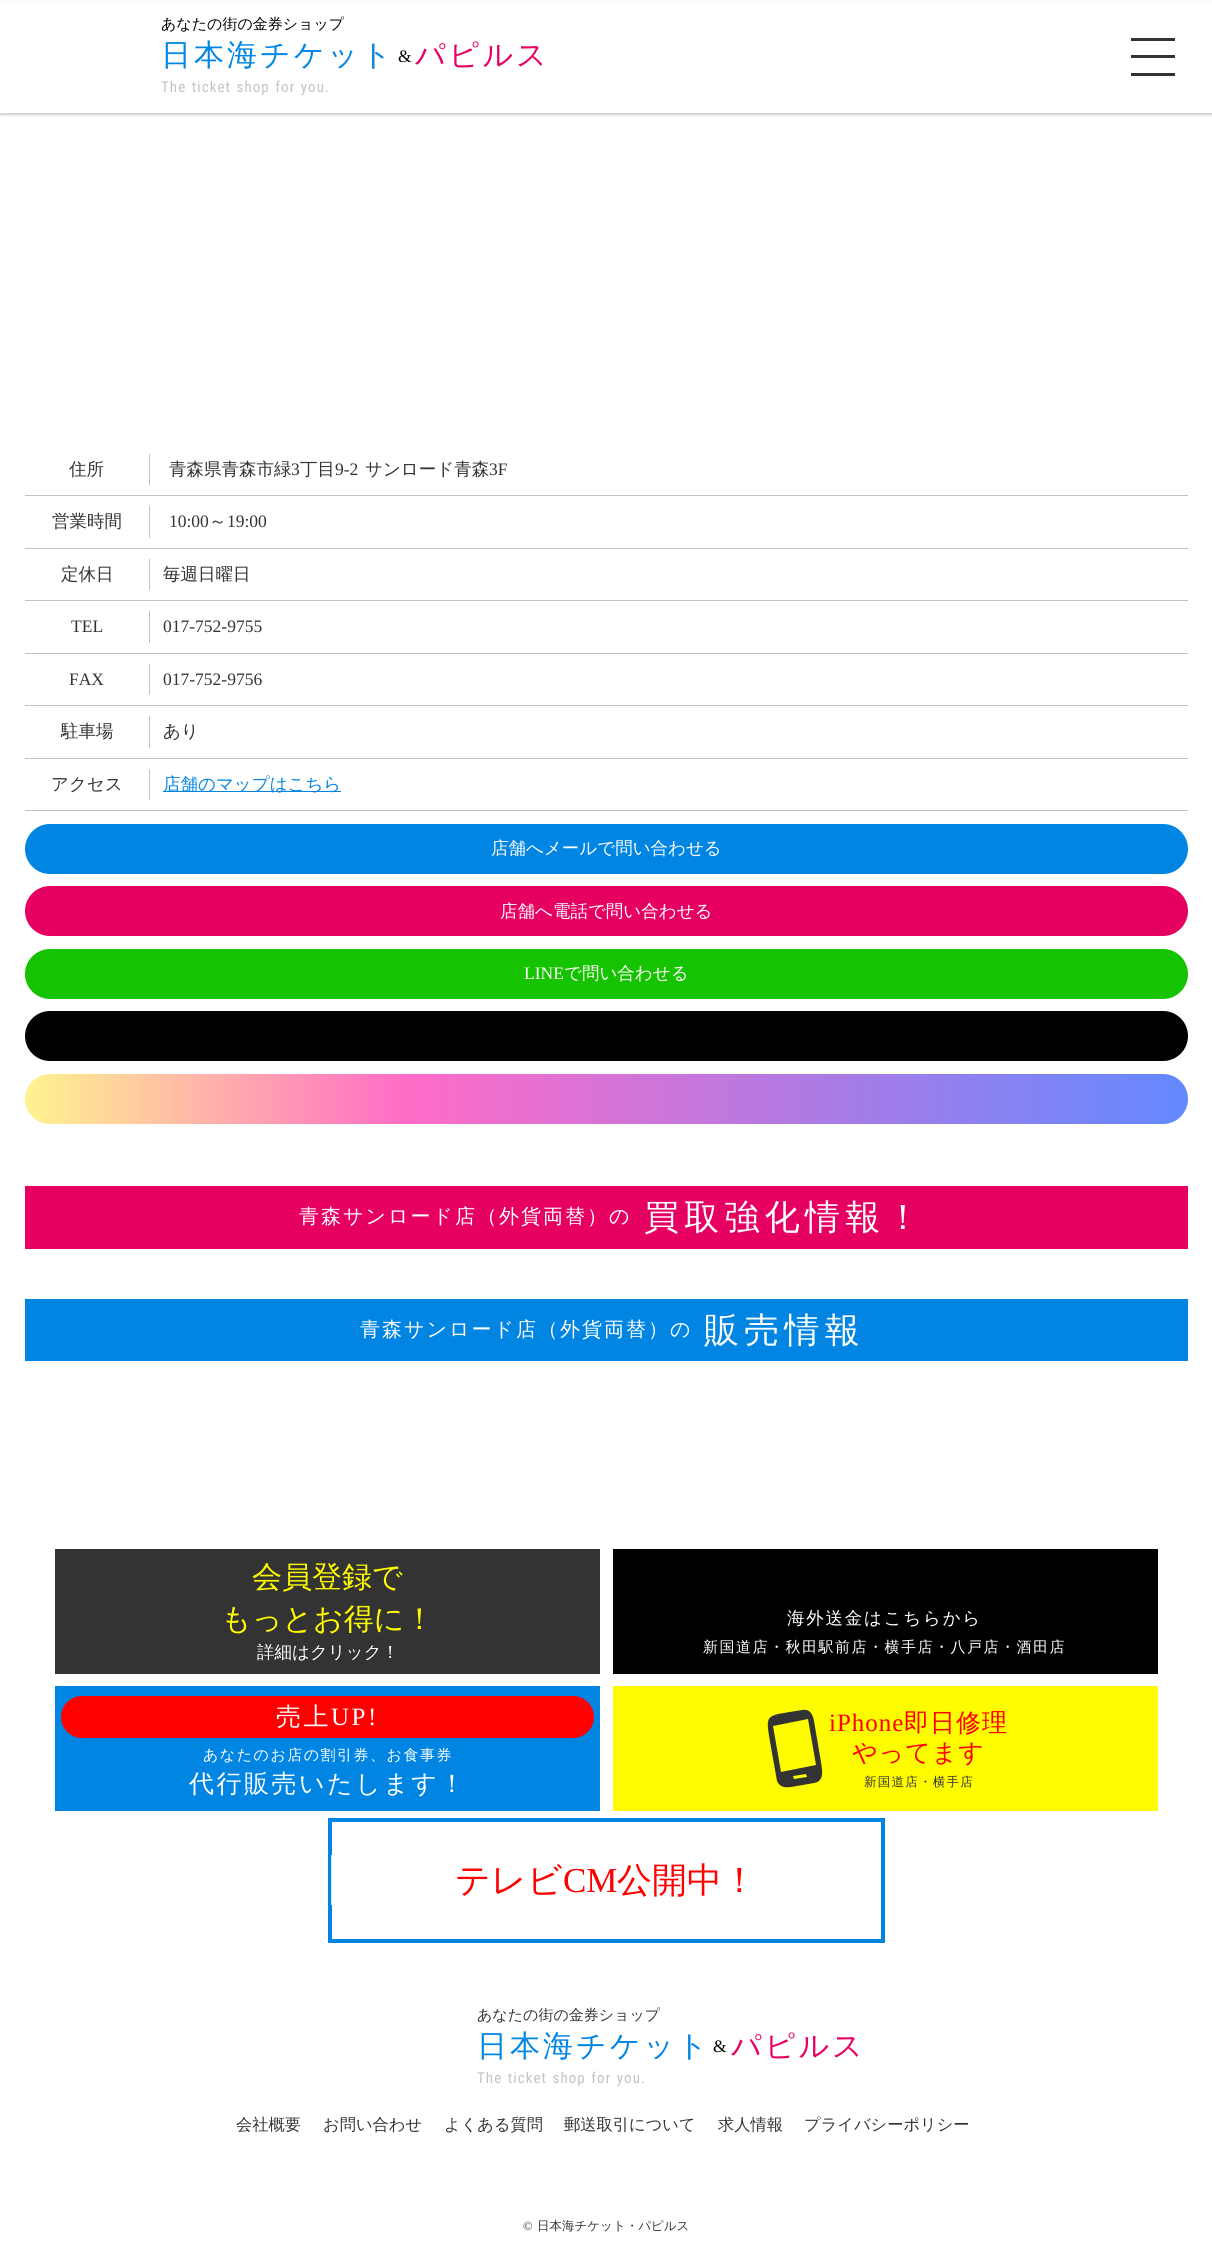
import math
import cairocffi as cairo

surface = cairo.ImageSurface(cairo.FORMAT_RGB24, 1212, 2253)
ctx = cairo.Context(surface)
options = cairo.FontOptions()
options.set_hint_metrics(cairo.HINT_METRICS_OFF)
options.set_hint_style(cairo.HINT_STYLE_NONE)
ctx.set_font_options(options)
ctx.set_miter_limit(4)


def rgb(r, g, b):
    ctx.set_source_rgb(r / 255, g / 255, b / 255)


def face(family, size, italic, bold):
    ctx.select_font_face(family, cairo.FONT_SLANT_ITALIC if italic else cairo.FONT_SLANT_NORMAL, cairo.FONT_WEIGHT_BOLD if bold else cairo.FONT_WEIGHT_NORMAL)
    ctx.set_font_size(size)


def label(x, y, s):
    ctx.move_to(x, y)
    ctx.show_text(s)


def tracked(x, y, s, letter, word):
    ctx.move_to(x, y)
    for ch in s:
        ctx.show_text(ch)
        ctx.rel_move_to(letter + word * (ch == ' '), 0)


def rect(x, y, w, h):
    ctx.rectangle(x, y, w, h)
    ctx.fill()


def rrect(x, y, w, h, r):
    ctx.new_sub_path()
    for i, (u, v) in enumerate([(x + w - r, y + h - r), (x + r, y + h - r), (x + r, y + r), (x + w - r, y + r)]):
        ctx.arc(u, v, r, i * math.pi / 2, (i + 1) * math.pi / 2)
    ctx.close_path()


def soft_shadow(x, y, w, h, r, blur, alpha):
    ctx.push_group_with_content(cairo.CONTENT_ALPHA)
    ctx.set_operator(cairo.OPERATOR_SOURCE)
    for i in range(15, -16, -2):
        e = blur * i / 6
        if min(w, h) + 2 * e > 0:
            ctx.set_source_rgba(0, 0, 0, alpha * math.erfc((i - 1) / 8.5) / 2)
            rrect(x - e, y - e, w + 2 * e, h + 2 * e, max(0, min(r + e + blur * .6, min(w, h) / 2 + e)))
            ctx.fill()
    ctx.mask(ctx.pop_group())


rgb(255, 255, 255)
ctx.paint()
rgb(195, 195, 195)
rect(0, 0, 1212, 6)
ctx.save()
ctx.set_fill_rule(cairo.FILL_RULE_EVEN_ODD)
ctx.new_path()
ctx.move_to(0, 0)
ctx.line_to(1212, 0)
ctx.line_to(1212, 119)
ctx.line_to(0, 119)
ctx.close_path()
ctx.move_to(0, 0)
ctx.line_to(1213, 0)
ctx.line_to(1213, 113)
ctx.line_to(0, 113)
ctx.close_path()
ctx.clip()
rgb(0, 0, 0)
soft_shadow(0, 3, 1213, 112, 0, 1, 0.2)
ctx.restore()
ctx.set_source_rgba(1, 1, 1, 0.95)
rect(0, 0, 1212, 113)
face('WenQuanYi Zen Hei Medium', 15, 0, 0)
rgb(0, 0, 0)
label(161, 29, 'あなたの街の金券ショップ')
face('WenQuanYi Zen Hei Medium', 30, 0, 0)
rgb(0, 133, 227)
tracked(161, 65, '日本海チケット', 3, 0)
face('Liberation Serif', 17.5, 0, 0)
rgb(0, 0, 0)
tracked(398, 62, '&', 1.75, 0)
face('WenQuanYi Zen Hei Medium', 30, 0, 0)
rgb(230, 0, 98)
tracked(415, 65, 'パピルス', 3, 0)
face('Roboto Condensed', 15, 0, 0)
rgb(195, 195, 195)
tracked(161, 92, 'The ticket shop for you.', 1.05, 1)
rgb(51, 51, 51)
rect(1131, 38, 44, 3)
rect(1131, 55, 44, 3)
rect(1131, 73, 44, 3)
rgb(195, 195, 195)
rect(25, 495, 1163, 1)
rect(149, 454, 1, 31)
face('WenQuanYi Zen Hei Medium', 17.5, 0, 0)
rgb(51, 51, 51)
label(69, 475, '住所')
label(169, 475, '青森県青森市緑')
face('Liberation Serif', 17.5, 0, 0)
label(291, 475, '3')
face('WenQuanYi Zen Hei Medium', 17.5, 0, 0)
label(300, 475, '丁目')
face('Liberation Serif', 17.5, 0, 0)
label(335, 475, '9-2')
face('WenQuanYi Zen Hei Medium', 17.5, 0, 0)
label(365, 475, 'サンロード青森')
face('Liberation Serif', 17.5, 0, 0)
label(489, 475, '3F')
rgb(195, 195, 195)
rect(25, 548, 1163, 1)
rect(149, 506, 1, 32)
face('WenQuanYi Zen Hei Medium', 17.5, 0, 0)
rgb(51, 51, 51)
label(52, 527, '営業時間')
face('Liberation Serif', 17.5, 0, 0)
label(169, 527, '10:00')
face('WenQuanYi Zen Hei Medium', 17.5, 0, 0)
label(209, 527, '～')
face('Liberation Serif', 17.5, 0, 0)
label(227, 527, '19:00')
rgb(195, 195, 195)
rect(25, 600, 1163, 1)
rect(149, 559, 1, 31)
face('WenQuanYi Zen Hei Medium', 17.5, 0, 0)
rgb(51, 51, 51)
label(61, 580, '定休日')
label(163, 580, '毎週日曜日')
rgb(195, 195, 195)
rect(25, 653, 1163, 1)
rect(149, 611, 1, 32)
face('Liberation Serif', 17.5, 0, 0)
rgb(51, 51, 51)
label(71, 632, 'TEL')
label(163, 632, '017-752-9755')
rgb(195, 195, 195)
rect(25, 705, 1163, 1)
rect(149, 664, 1, 31)
rgb(51, 51, 51)
label(69, 685, 'FAX')
label(163, 685, '017-752-9756')
rgb(195, 195, 195)
rect(25, 758, 1163, 1)
rect(149, 716, 1, 32)
face('WenQuanYi Zen Hei Medium', 17.5, 0, 0)
rgb(51, 51, 51)
label(61, 737, '駐車場')
label(163, 737, 'あり')
rgb(195, 195, 195)
rect(25, 810, 1163, 1)
rect(149, 769, 1, 31)
rgb(51, 51, 51)
label(51, 790, 'アクセス')
rgb(0, 133, 227)
rect(163, 791, 178, 1)
label(163, 790, '店舗のマップはこちら')
rrect(25, 824, 1163, 50, 25)
ctx.fill()
rgb(255, 255, 255)
label(491, 854, '店舗へメールで問い合わせる')
rgb(230, 0, 98)
rrect(25, 886, 1163, 50, 25)
ctx.fill()
rgb(255, 255, 255)
label(500, 917, '店舗へ電話で問い合わせる')
rgb(22, 195, 0)
rrect(25, 949, 1163, 50, 25)
ctx.fill()
face('Liberation Serif', 17.5, 0, 0)
rgb(255, 255, 255)
label(524, 979, 'LINE')
face('WenQuanYi Zen Hei Medium', 17.5, 0, 0)
label(564, 979, 'で問い合わせる')
rgb(0, 0, 0)
rrect(25, 1011, 1163, 50, 25)
ctx.fill()
gradient = cairo.LinearGradient(25, 1099, 1188, 1099)
gradient.add_color_stop_rgba(0, 1, 0.953, 0.557, 1)
gradient.add_color_stop_rgba(0.33, 1, 0.42, 0.78, 1)
gradient.add_color_stop_rgba(1, 0.388, 0.537, 1, 1)
ctx.set_source(gradient)
rrect(25, 1074, 1163, 50, 25)
ctx.fill()
rgb(230, 0, 98)
rect(25, 1186, 1163, 63)
face('WenQuanYi Zen Hei Medium', 20, 0, 0)
rgb(255, 255, 255)
tracked(299, 1223, '青森サンロード店（外貨両替）の', 2, 0)
face('WenQuanYi Zen Hei Medium', 35, 0, 0)
tracked(644, 1229, '買取強化情報！', 5.25, 0)
rgb(0, 133, 227)
rect(25, 1299, 1163, 62)
face('WenQuanYi Zen Hei Medium', 20, 0, 0)
rgb(255, 255, 255)
tracked(360, 1336, '青森サンロード店（外貨両替）の', 2, 0)
face('WenQuanYi Zen Hei Medium', 35, 0, 0)
tracked(704, 1342, '販売情報', 5.25, 0)
rgb(51, 51, 51)
rect(55, 1549, 545, 125)
face('WenQuanYi Zen Hei Medium', 30, 0, 0)
rgb(255, 251, 0)
label(252, 1587, '会員登録で')
label(221, 1629, 'もっとお得に！')
face('WenQuanYi Zen Hei Medium', 17.5, 0, 0)
rgb(255, 255, 255)
label(257, 1658, '詳細はクリック！')
rgb(0, 0, 0)
rect(613, 1549, 545, 125)
rgb(255, 255, 255)
tracked(787, 1624, '海外送金はこちらから', 1.75, 0)
face('WenQuanYi Zen Hei Medium', 15, 0, 0)
tracked(703, 1652, '新国道店・秋田駅前店・横手店・八戸店・酒田店', 1.5, 0)
rgb(0, 133, 227)
rect(55, 1686, 545, 125)
rgb(255, 0, 0)
rrect(61, 1696, 533, 42, 21)
ctx.fill()
face('WenQuanYi Zen Hei Medium', 25, 0, 0)
rgb(255, 255, 255)
tracked(276, 1725, '売上', 2.5, 0)
face('Liberation Serif', 25, 0, 0)
tracked(331, 1725, 'UP!', 2.5, 0)
face('WenQuanYi Zen Hei Medium', 15, 0, 0)
tracked(203, 1760, 'あなたのお店の割引券、お食事券', 1.5, 0)
face('WenQuanYi Zen Hei Medium', 25, 0, 0)
tracked(189, 1792, '代行販売いたします！', 2.5, 0)
rgb(255, 251, 0)
rect(613, 1686, 545, 125)
rgb(51, 51, 51)
ctx.new_path()
ctx.move_to(816, 1765)
ctx.line_to(808, 1719)
ctx.line_to(773, 1726)
ctx.line_to(781, 1772)
ctx.close_path()
ctx.move_to(807, 1777)
ctx.line_to(806, 1774)
ctx.line_to(793, 1776)
ctx.line_to(794, 1779)
ctx.close_path()
ctx.move_to(802, 1710)
ctx.curve_to(813, 1708, 814, 1720, 815, 1727)
ctx.line_to(821, 1762)
ctx.curve_to(822, 1770, 825, 1781, 814, 1783)
ctx.line_to(797, 1786)
ctx.curve_to(790, 1787, 781, 1790, 777, 1781)
ctx.line_to(772, 1753)
ctx.curve_to(765, 1711, 762, 1717, 802, 1710)
ctx.close_path()
ctx.fill()
face('Liberation Serif', 25, 0, 0)
rgb(255, 0, 0)
tracked(829, 1731, 'iPhone', 1, 0)
face('WenQuanYi Zen Hei Medium', 25, 0, 0)
tracked(904, 1731, '即日修理', 1, 0)
tracked(852, 1761, 'やってます', 1, 0)
face('WenQuanYi Zen Hei Medium', 12.5, 0, 0)
rgb(51, 51, 51)
tracked(864, 1786, '新国道店・横手店', 1.25, 0)
ctx.rectangle(330, 1820, 553, 121)
rgb(0, 133, 227)
ctx.set_line_width(4)
ctx.stroke()
ctx.set_source_rgba(1, 1, 1, 0.82)
rect(331, 1855, 1, 50)
face('WenQuanYi Zen Hei Medium', 35, 0, 0)
rgb(255, 0, 0)
label(455, 1892, 'テレビ')
face('Liberation Serif', 35, 0, 0)
label(563, 1892, 'CM')
face('WenQuanYi Zen Hei Medium', 35, 0, 0)
label(617, 1892, '公開中！')
face('WenQuanYi Zen Hei Medium', 15, 0, 0)
rgb(51, 51, 51)
label(477, 2020, 'あなたの街の金券ショップ')
face('WenQuanYi Zen Hei Medium', 30, 0, 0)
rgb(0, 133, 227)
tracked(477, 2056, '日本海チケット', 3, 0)
face('Liberation Serif', 17.5, 0, 0)
rgb(0, 0, 0)
tracked(713, 2052, '&', 1.75, 0)
face('WenQuanYi Zen Hei Medium', 30, 0, 0)
rgb(230, 0, 98)
tracked(731, 2056, 'パピルス', 3, 0)
face('Roboto Condensed', 15, 0, 0)
rgb(195, 195, 195)
tracked(477, 2083, 'The ticket shop for you.', 1.05, 1)
face('WenQuanYi Zen Hei Medium', 16.25, 0, 0)
rgb(51, 51, 51)
label(236, 2130, '会社概要')
label(323, 2130, 'お問い合わせ')
label(444, 2130, 'よくある質問')
label(564, 2130, '郵送取引について')
label(718, 2130, '求人情報')
label(804, 2130, 'プライバシーポリシー')
face('Liberation Serif', 12.5, 0, 0)
label(523, 2230, '©')
face('WenQuanYi Zen Hei Medium', 12.5, 0, 0)
label(537, 2230, '日本海チケット・パピルス')
surface.write_to_png('render.png')
